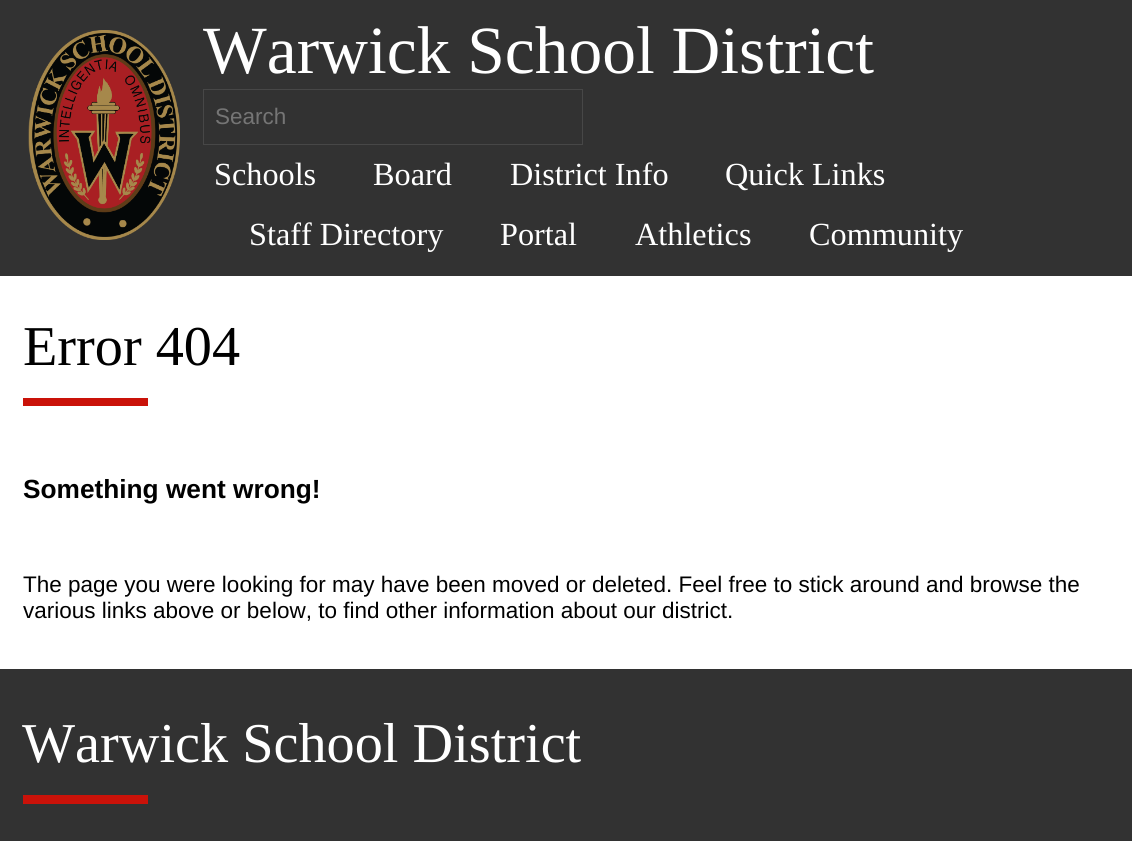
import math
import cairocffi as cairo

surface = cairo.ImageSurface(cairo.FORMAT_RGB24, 1132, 841)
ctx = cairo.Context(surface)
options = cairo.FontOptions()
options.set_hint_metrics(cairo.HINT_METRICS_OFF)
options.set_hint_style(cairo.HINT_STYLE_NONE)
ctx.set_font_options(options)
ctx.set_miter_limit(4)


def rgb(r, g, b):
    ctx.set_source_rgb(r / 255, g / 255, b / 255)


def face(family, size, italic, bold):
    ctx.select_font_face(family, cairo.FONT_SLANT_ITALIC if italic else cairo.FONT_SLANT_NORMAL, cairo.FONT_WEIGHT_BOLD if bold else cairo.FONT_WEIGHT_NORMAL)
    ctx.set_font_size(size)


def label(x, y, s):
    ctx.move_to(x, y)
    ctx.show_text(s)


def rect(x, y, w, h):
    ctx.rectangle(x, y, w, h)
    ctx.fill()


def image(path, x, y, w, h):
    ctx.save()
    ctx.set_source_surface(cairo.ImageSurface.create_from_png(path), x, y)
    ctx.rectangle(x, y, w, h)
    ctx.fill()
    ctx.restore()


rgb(255, 255, 255)
ctx.paint()
rgb(50, 50, 50)
rect(0, 0, 1132, 276)
image('image0.png', 28, 30, 152, 210)
face('Liberation Serif', 67.5, 0, 0)
rgb(255, 255, 255)
label(203, 73, 'Warwick School District')
ctx.rectangle(203.5, 89.5, 379, 55)
rgb(71, 71, 71)
ctx.set_line_width(1)
ctx.stroke()
face('Liberation Sans', 22.5, 0, 0)
rgb(117, 117, 117)
label(215, 124, 'Search')
face('Liberation Serif', 32.25, 0, 0)
rgb(255, 255, 255)
label(214, 185, 'Schools')
label(373, 185, 'Board')
label(510, 185, 'District Info')
label(725, 185, 'Quick Links')
label(249, 245, 'Staff Directory')
label(500, 245, 'Portal')
label(635, 245, 'Athletics')
label(809, 245, 'Community')
face('Liberation Serif', 56.25, 0, 0)
rgb(0, 0, 0)
label(23, 365, 'Error 404')
rgb(202, 18, 9)
rect(23, 398, 125, 8)
face('Liberation Sans', 26.25, 0, 1)
rgb(0, 0, 0)
label(23, 498, 'Something went wrong!')
face('Liberation Sans', 22.5, 0, 0)
label(23, 592, 'The page you were looking for may have been moved or deleted. Feel free to stick around and browse the')
label(23, 618, 'various links above or below, to find other information about our district.')
rgb(50, 50, 50)
rect(0, 669, 1132, 172)
face('Liberation Serif', 56.25, 0, 0)
rgb(255, 255, 255)
label(22, 762, 'Warwick School District')
rgb(202, 18, 9)
rect(23, 795, 125, 9)
surface.write_to_png('render.png')
